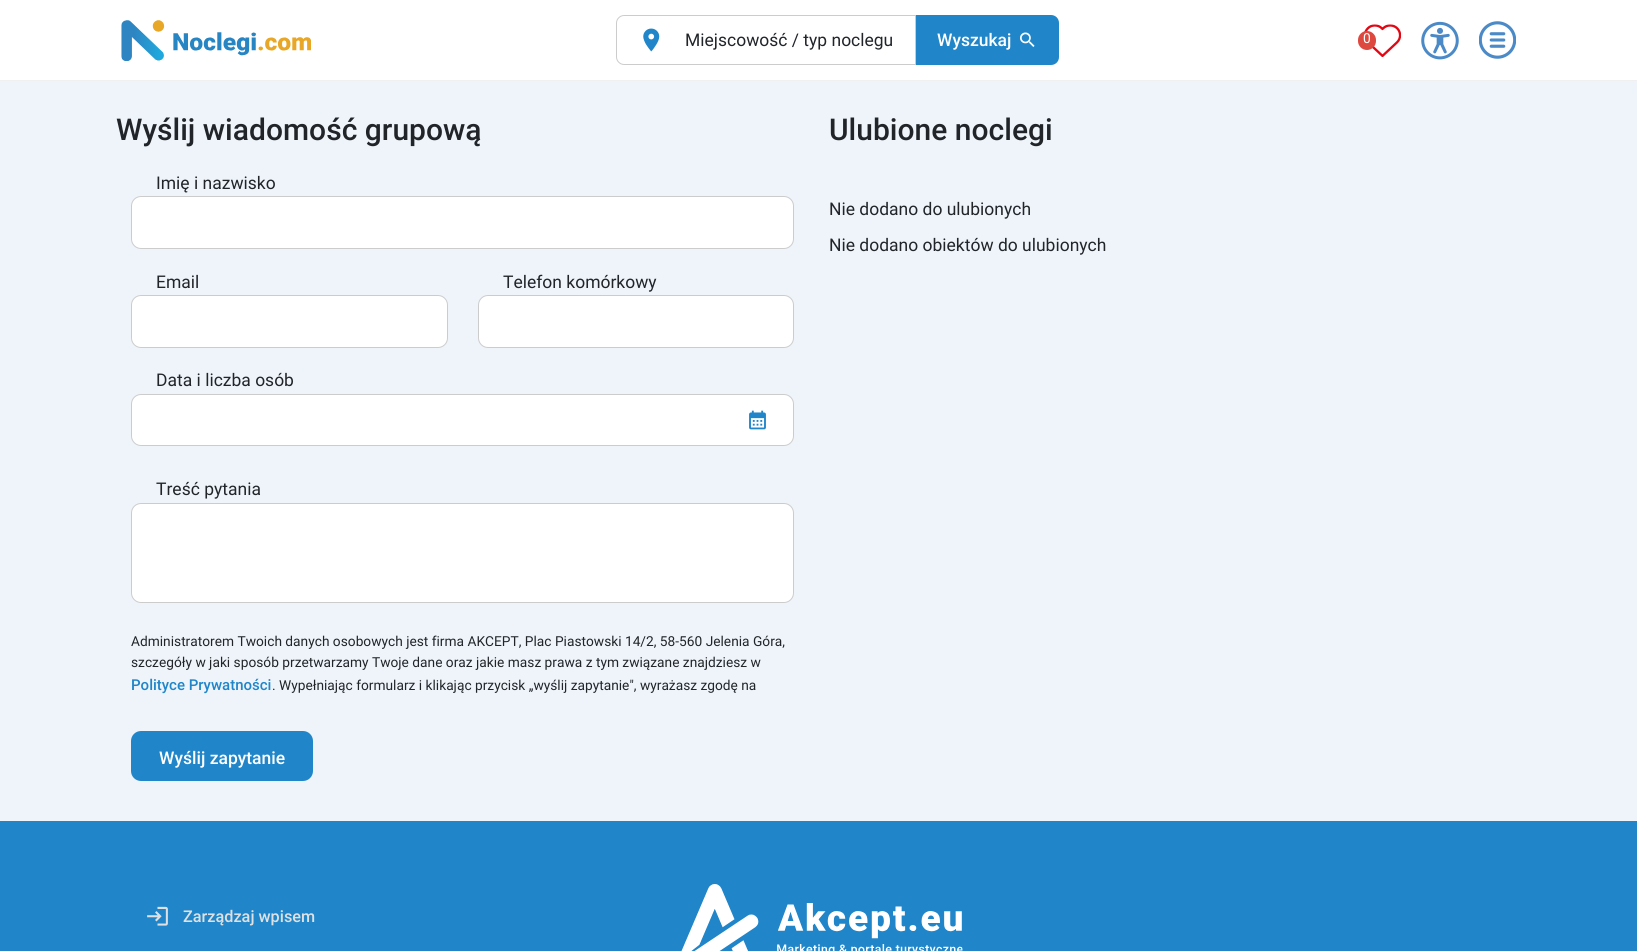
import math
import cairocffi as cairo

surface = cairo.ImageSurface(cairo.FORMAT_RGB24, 1637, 951)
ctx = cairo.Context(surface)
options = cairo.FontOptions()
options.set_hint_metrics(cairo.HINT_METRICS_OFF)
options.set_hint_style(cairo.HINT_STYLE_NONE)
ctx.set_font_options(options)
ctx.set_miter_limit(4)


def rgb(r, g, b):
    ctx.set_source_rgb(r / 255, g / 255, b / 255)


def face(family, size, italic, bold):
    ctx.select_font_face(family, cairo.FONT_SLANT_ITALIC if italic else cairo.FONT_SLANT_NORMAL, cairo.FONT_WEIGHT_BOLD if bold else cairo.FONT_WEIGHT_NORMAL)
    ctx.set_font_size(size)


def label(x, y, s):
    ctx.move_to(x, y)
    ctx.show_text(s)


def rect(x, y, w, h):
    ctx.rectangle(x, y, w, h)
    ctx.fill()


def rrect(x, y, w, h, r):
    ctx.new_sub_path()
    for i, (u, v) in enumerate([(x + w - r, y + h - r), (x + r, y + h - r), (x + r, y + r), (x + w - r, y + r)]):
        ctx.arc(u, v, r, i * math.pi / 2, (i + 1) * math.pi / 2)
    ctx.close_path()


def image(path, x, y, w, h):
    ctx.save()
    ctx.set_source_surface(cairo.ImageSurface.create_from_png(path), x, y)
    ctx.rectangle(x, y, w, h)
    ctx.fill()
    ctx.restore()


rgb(239, 244, 251)
ctx.paint()
rgb(255, 255, 255)
rect(0, 0, 1637, 80)
rgb(240, 240, 240)
rect(0, 80, 1637, 1)
image('image0.png', 121, 20, 190, 41)
ctx.new_path()
ctx.move_to(624, 15.5)
ctx.line_to(915.5, 15.5)
ctx.line_to(915.5, 64.5)
ctx.line_to(624, 64.5)
ctx.curve_to(620, 64.5, 616.5, 61, 616.5, 57)
ctx.line_to(616.5, 23)
ctx.curve_to(616.5, 19, 620, 15.5, 624, 15.5)
ctx.close_path()
rgb(204, 204, 204)
ctx.set_line_width(1)
ctx.stroke()
image('image1.png', 643, 28, 17, 24)
face('Roboto', 17.5, 0, 0)
rgb(33, 37, 41)
label(685, 46, 'Miejscowość / typ noclegu')
rgb(32, 134, 201)
ctx.new_path()
ctx.move_to(916, 15)
ctx.line_to(1051, 15)
ctx.curve_to(1055.5, 15, 1059, 18.5, 1059, 23)
ctx.line_to(1059, 57)
ctx.curve_to(1059, 61.5, 1055.5, 65, 1051, 65)
ctx.line_to(916, 65)
ctx.close_path()
ctx.fill()
face('Roboto Medium', 17.5, 0, 0)
rgb(255, 255, 255)
label(937, 46, 'Wyszukaj')
image('image2.png', 1020, 32, 15, 15)
image('image3.png', 1364, 24, 37, 33)
rgb(221, 72, 63)
rrect(1358, 31, 18, 19, 9)
ctx.fill()
face('Roboto', 13.75, 0, 0)
rgb(255, 255, 255)
label(1363, 43, '0')
image('image4.png', 1421, 21, 38, 39)
image('image5.png', 1479, 21, 37, 38)
face('Roboto Medium', 30, 0, 0)
rgb(33, 37, 41)
label(116, 140, 'Wyślij wiadomość grupową')
face('Roboto', 17.5, 0, 0)
label(156, 189, 'Imię i nazwisko')
rgb(255, 255, 255)
rrect(131.5, 196.5, 662, 52, 9.5)
ctx.fill_preserve()
rgb(204, 204, 204)
ctx.stroke()
rgb(33, 37, 41)
label(156, 288, 'Email')
rgb(255, 255, 255)
rrect(131.5, 295.5, 316, 52, 9.5)
ctx.fill_preserve()
rgb(204, 204, 204)
ctx.stroke()
rgb(33, 37, 41)
label(503, 288, 'Telefon komórkowy')
rgb(255, 255, 255)
rrect(478.5, 295.5, 315, 52, 9.5)
ctx.fill_preserve()
rgb(204, 204, 204)
ctx.stroke()
rgb(33, 37, 41)
label(156, 386, 'Data i liczba osób')
rgb(255, 255, 255)
rrect(131.5, 394.5, 662, 51, 9.5)
ctx.fill_preserve()
rgb(204, 204, 204)
ctx.stroke()
image('image6.png', 749, 410, 17, 20)
rgb(33, 37, 41)
label(156, 495, 'Treść pytania')
rgb(255, 255, 255)
rrect(131.5, 503.5, 662, 99, 9.5)
ctx.fill_preserve()
rgb(204, 204, 204)
ctx.stroke()
face('Roboto', 13.75, 0, 0)
rgb(33, 37, 41)
label(131, 646, 'Administratorem Twoich danych osobowych jest firma AKCEPT, Plac Piastowski 14/2, 58-560 Jelenia Góra,')
label(131, 667, 'szczegóły w jaki sposób przetwarzamy Twoje dane oraz jakie masz prawa z tym związane znajdziesz w')
face('Roboto Medium', 15, 0, 0)
rgb(32, 134, 201)
label(131, 690, 'Polityce Prywatności')
face('Roboto', 13.75, 0, 0)
rgb(33, 37, 41)
label(272, 690, '. Wypełniając formularz i klikając przycisk „wyślij zapytanie", wyrażasz zgodę na')
rgb(32, 134, 201)
rrect(132.5, 732.5, 179, 47, 8.5)
ctx.fill_preserve()
ctx.set_line_width(3)
ctx.stroke()
face('Roboto Medium', 17.5, 0, 0)
rgb(255, 255, 255)
label(159, 764, 'Wyślij zapytanie')
face('Roboto Medium', 30, 0, 0)
rgb(33, 37, 41)
label(829, 140, 'Ulubione noclegi')
face('Roboto', 17.5, 0, 0)
label(829, 215, 'Nie dodano do ulubionych')
label(829, 251, 'Nie dodano obiektów do ulubionych')
rgb(32, 134, 201)
rect(0, 821, 1637, 130)
image('image7.png', 147, 906, 21, 20)
face('Roboto Medium', 16.25, 0, 0)
rgb(223, 224, 226)
label(183, 922, 'Zarządzaj wpisem')
image('image8.png', 681, 884, 282, 67)
surface.write_to_png('render.png')
